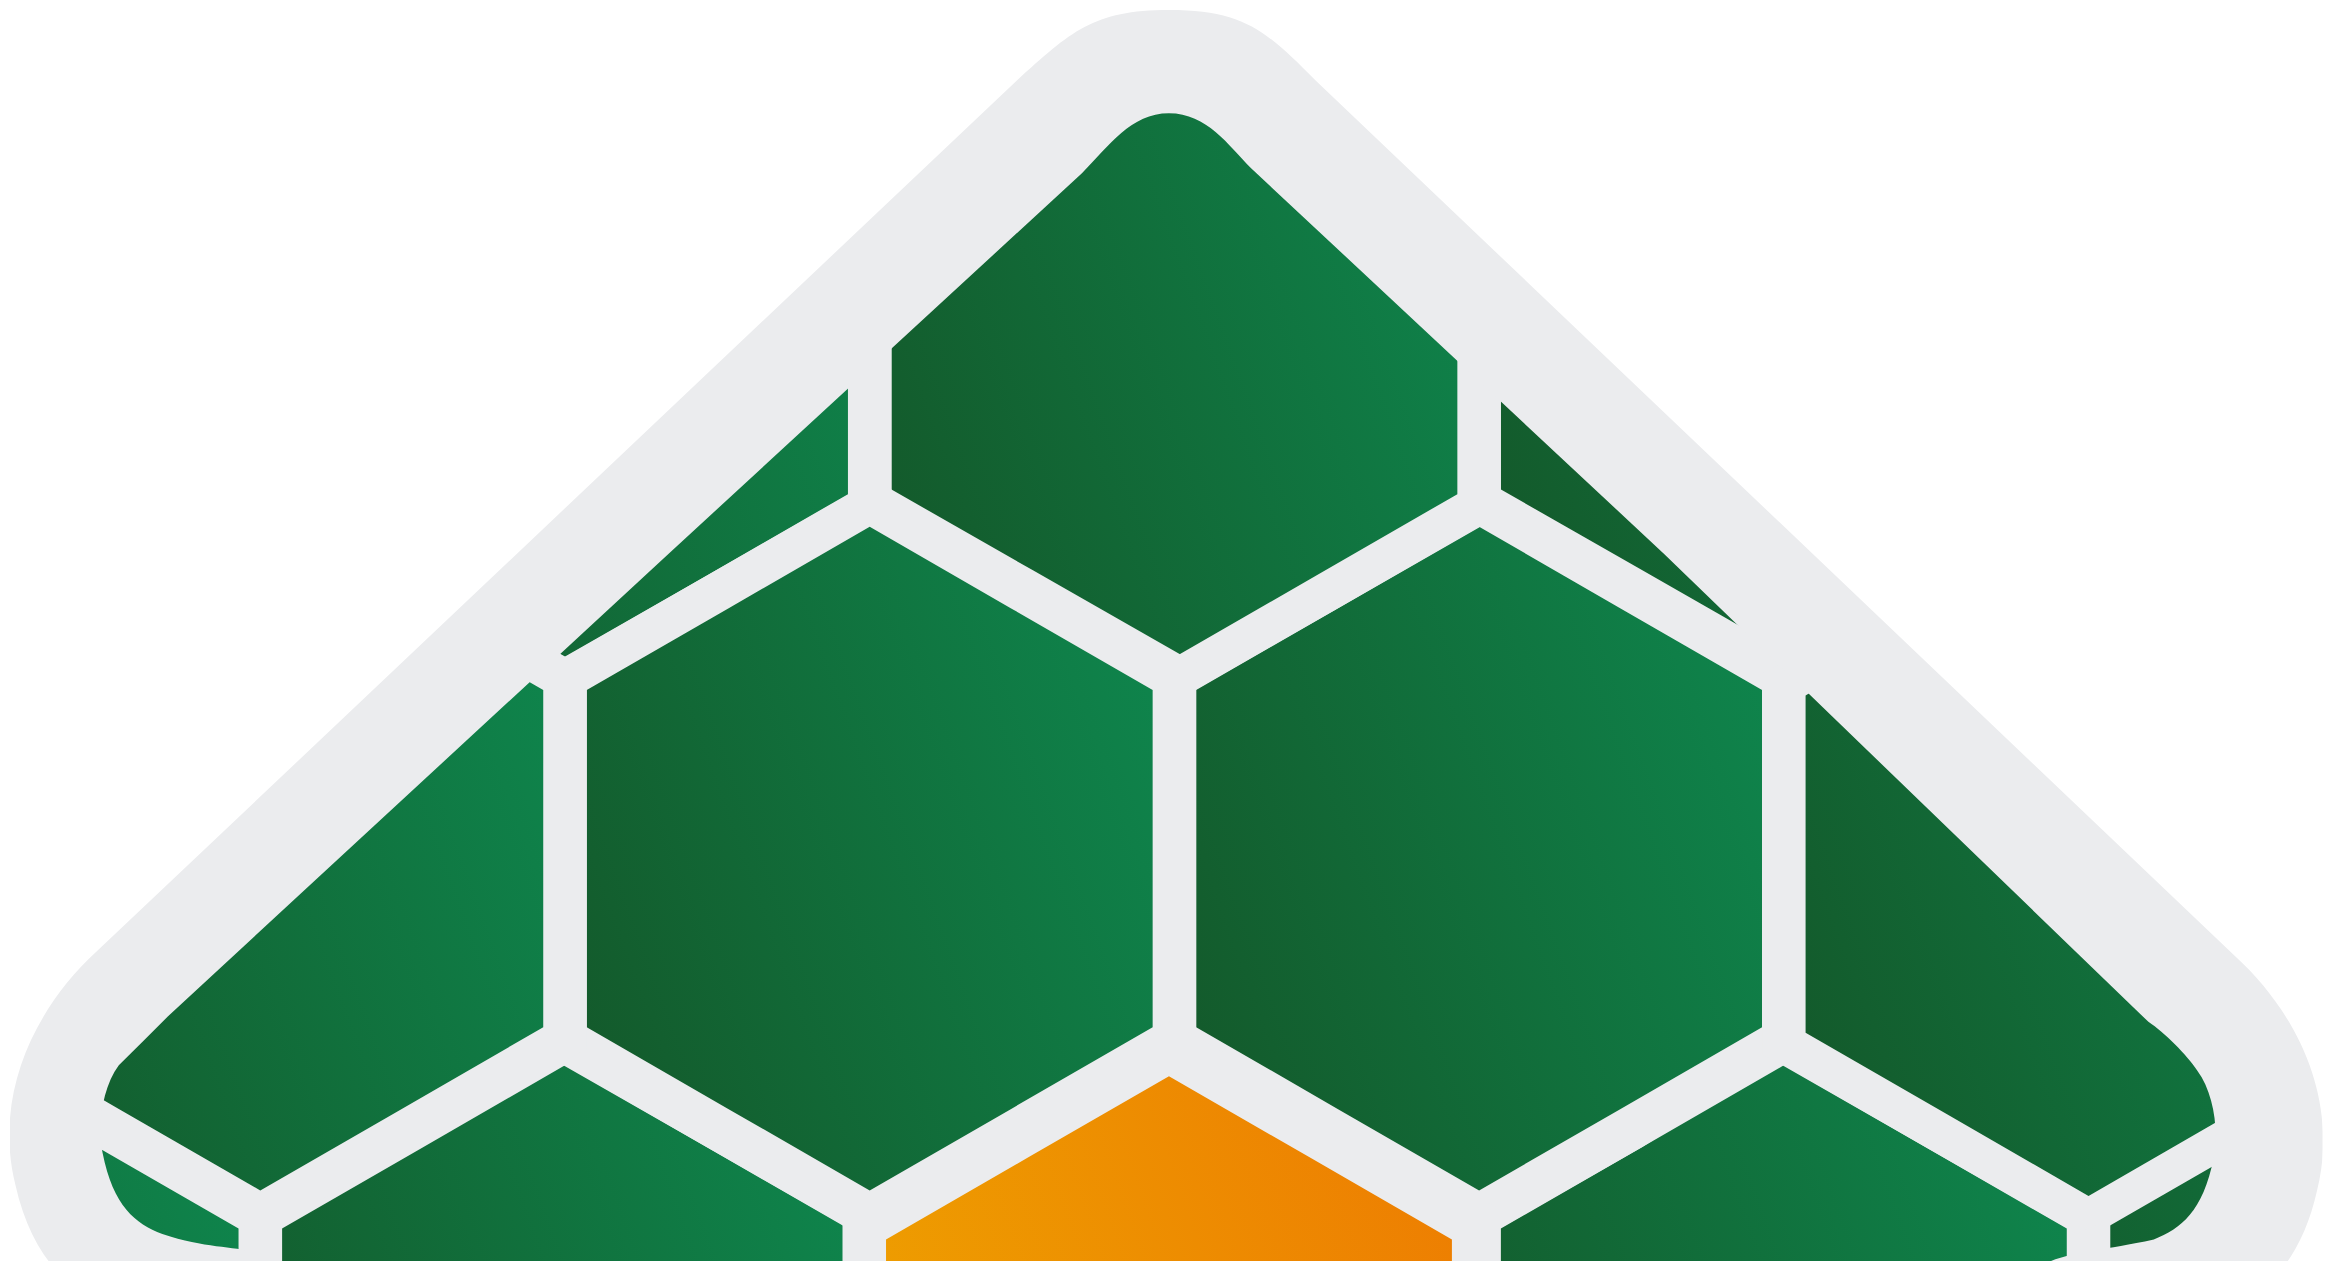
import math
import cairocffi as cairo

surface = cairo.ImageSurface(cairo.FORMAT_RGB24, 2332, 1261)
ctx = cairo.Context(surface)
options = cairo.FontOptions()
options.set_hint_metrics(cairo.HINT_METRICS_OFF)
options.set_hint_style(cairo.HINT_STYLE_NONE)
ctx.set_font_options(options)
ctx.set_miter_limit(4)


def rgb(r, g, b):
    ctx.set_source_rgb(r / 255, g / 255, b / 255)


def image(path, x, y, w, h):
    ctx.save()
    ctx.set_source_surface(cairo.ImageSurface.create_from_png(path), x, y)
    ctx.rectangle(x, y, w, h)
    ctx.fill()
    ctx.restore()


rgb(255, 255, 255)
ctx.paint()
image('image0.png', 10, 10, 2313, 1251)
surface.write_to_png('render.png')
